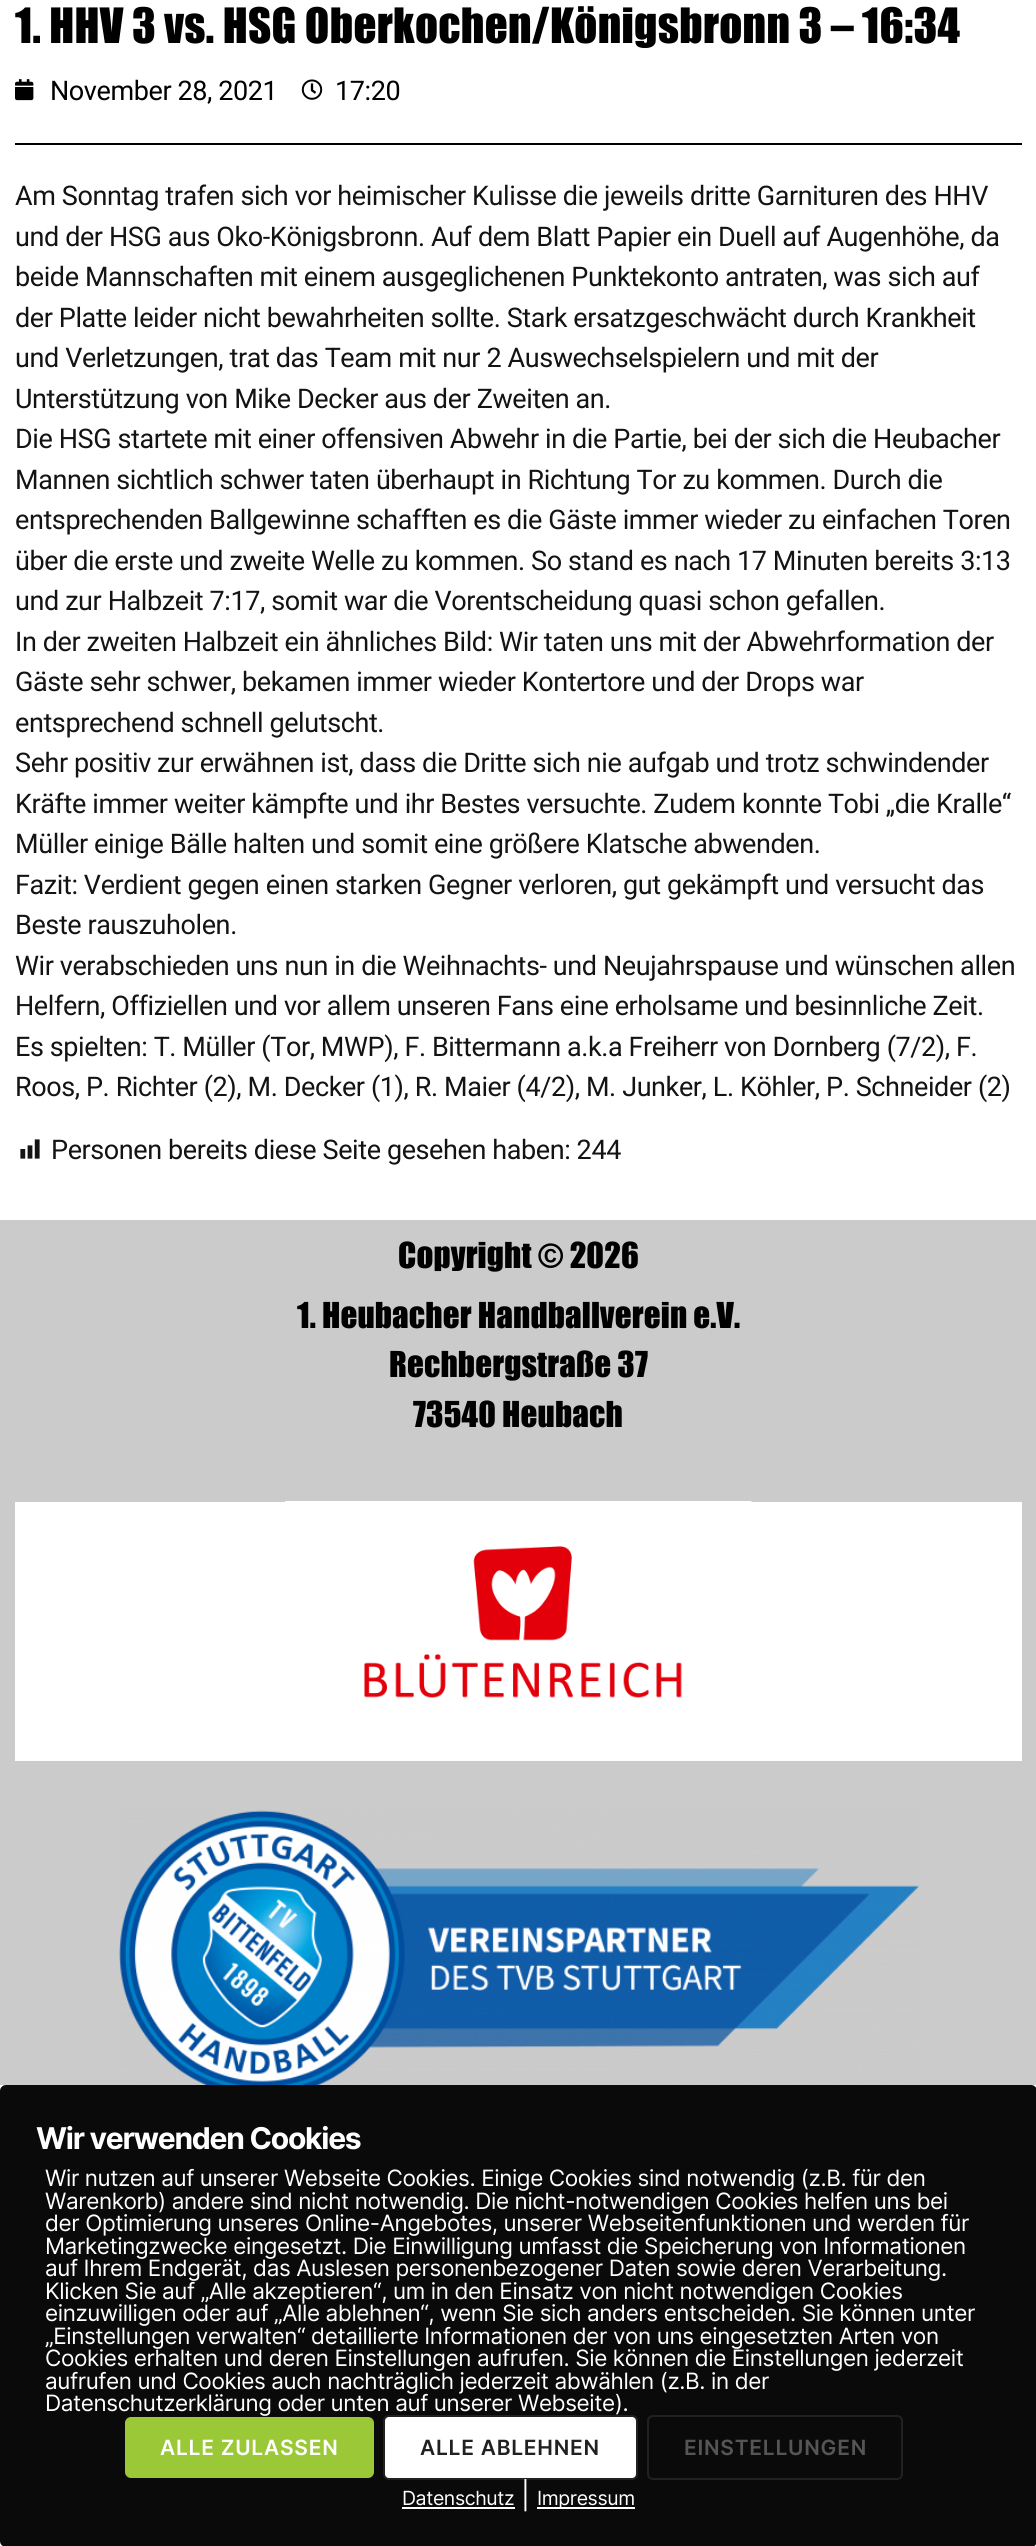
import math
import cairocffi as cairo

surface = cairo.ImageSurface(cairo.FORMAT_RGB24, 1036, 2546)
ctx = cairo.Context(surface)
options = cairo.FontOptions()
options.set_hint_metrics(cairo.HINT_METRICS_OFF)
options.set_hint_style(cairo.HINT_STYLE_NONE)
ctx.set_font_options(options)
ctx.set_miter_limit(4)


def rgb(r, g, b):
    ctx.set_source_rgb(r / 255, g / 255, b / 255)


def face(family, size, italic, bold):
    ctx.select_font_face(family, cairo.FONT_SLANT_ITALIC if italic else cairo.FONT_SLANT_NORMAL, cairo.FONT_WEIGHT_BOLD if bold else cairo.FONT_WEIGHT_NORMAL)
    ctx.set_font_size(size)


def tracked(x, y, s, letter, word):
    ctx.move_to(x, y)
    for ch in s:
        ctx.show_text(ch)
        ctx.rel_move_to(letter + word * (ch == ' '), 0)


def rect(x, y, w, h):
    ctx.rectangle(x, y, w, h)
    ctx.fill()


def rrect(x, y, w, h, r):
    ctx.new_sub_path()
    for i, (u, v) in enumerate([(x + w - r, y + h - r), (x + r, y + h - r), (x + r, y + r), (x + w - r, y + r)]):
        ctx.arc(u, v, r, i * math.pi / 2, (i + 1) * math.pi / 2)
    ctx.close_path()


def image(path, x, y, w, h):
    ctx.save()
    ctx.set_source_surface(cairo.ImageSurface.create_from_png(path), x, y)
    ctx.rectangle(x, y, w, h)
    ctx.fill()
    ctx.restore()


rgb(255, 255, 255)
ctx.paint()
face('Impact', 45, 0, 0)
rgb(0, 0, 0)
tracked(15, 43, '1. HHV 3 vs. HSG Oberkochen/Königsbronn 3 – 16:34', 0.3, 0)
image('image0.png', 15, 79, 19, 22)
face('Roboto', 27, 0, 0)
tracked(50, 100, 'November 28, 2021', -0.4, 0)
image('image1.png', 301, 79, 22, 21)
tracked(335, 100, '17:20', -0.4, 0)
rect(15, 143, 1007, 2)
rgb(19, 19, 19)
tracked(15, 205, 'Am Sonntag trafen sich vor heimischer Kulisse die jeweils dritte Garnituren des HHV', -0.4, 0)
tracked(15, 246, 'und der HSG aus Oko-Königsbronn. Auf dem Blatt Papier ein Duell auf Augenhöhe, da', -0.4, 0)
tracked(15, 286, 'beide Mannschaften mit einem ausgeglichenen Punktekonto antraten, was sich auf', -0.4, 0)
tracked(15, 327, 'der Platte leider nicht bewahrheiten sollte. Stark ersatzgeschwächt durch Krankheit', -0.4, 0)
tracked(15, 367, 'und Verletzungen, trat das Team mit nur 2 Auswechselspielern und mit der', -0.4, 0)
tracked(15, 408, 'Unterstützung von Mike Decker aus der Zweiten an.', -0.4, 0)
tracked(15, 448, 'Die HSG startete mit einer offensiven Abwehr in die Partie, bei der sich die Heubacher', -0.4, 0)
tracked(15, 489, 'Mannen sichtlich schwer taten überhaupt in Richtung Tor zu kommen. Durch die', -0.4, 0)
tracked(15, 529, 'entsprechenden Ballgewinne schafften es die Gäste immer wieder zu einfachen Toren', -0.4, 0)
tracked(15, 570, 'über die erste und zweite Welle zu kommen. So stand es nach 17 Minuten bereits 3:13', -0.4, 0)
tracked(15, 610, 'und zur Halbzeit 7:17, somit war die Vorentscheidung quasi schon gefallen.', -0.4, 0)
tracked(15, 651, 'In der zweiten Halbzeit ein ähnliches Bild: Wir taten uns mit der Abwehrformation der', -0.4, 0)
tracked(15, 691, 'Gäste sehr schwer, bekamen immer wieder Kontertore und der Drops war', -0.4, 0)
tracked(15, 732, 'entsprechend schnell gelutscht.', -0.4, 0)
tracked(15, 772, 'Sehr positiv zur erwähnen ist, dass die Dritte sich nie aufgab und trotz schwindender', -0.4, 0)
tracked(15, 813, 'Kräfte immer weiter kämpfte und ihr Bestes versuchte. Zudem konnte Tobi „die Kralle“', -0.4, 0)
tracked(15, 853, 'Müller einige Bälle halten und somit eine größere Klatsche abwenden.', -0.4, 0)
tracked(15, 894, 'Fazit: Verdient gegen einen starken Gegner verloren, gut gekämpft und versucht das', -0.4, 0)
tracked(15, 934, 'Beste rauszuholen.', -0.4, 0)
tracked(15, 975, 'Wir verabschieden uns nun in die Weihnachts- und Neujahrspause und wünschen allen', -0.4, 0)
tracked(15, 1015, 'Helfern, Offiziellen und vor allem unseren Fans eine erholsame und besinnliche Zeit.', -0.4, 0)
tracked(15, 1056, 'Es spielten: T. Müller (Tor, MWP), F. Bittermann a.k.a Freiherr von Dornberg (7/2), F.', -0.4, 0)
tracked(15, 1096, 'Roos, P. Richter (2), M. Decker (1), R. Maier (4/2), M. Junker, L. Köhler, P. Schneider (2)', -0.4, 0)
image('image2.png', 20, 1139, 20, 20)
tracked(51, 1159, 'Personen bereits diese Seite gesehen haben: 244', -0.4, 0)
rgb(203, 203, 203)
rect(0, 1220, 1036, 865)
face('Impact', 33, 0, 0)
rgb(0, 0, 0)
tracked(398, 1268, 'Copyright © 2026', 0.15, 0)
tracked(297, 1328, '1. Heubacher Handballverein e.V.', 0.15, 0)
tracked(389, 1377, 'Rechbergstraße 37', 0.15, 0)
tracked(413, 1427, '73540 Heubach', 0.15, 0)
rgb(255, 255, 255)
rect(15, 1502, 1007, 259)
image('image3.png', 285, 1501, 467, 197)
image('image4.png', 119, 1810, 800, 275)
rgb(10, 10, 10)
rrect(0, 2085, 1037, 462, 6)
ctx.fill()
face('Inter', 30, 0, 1)
rgb(255, 255, 255)
tracked(36, 2149, 'Wir verwenden Cookies', -1.25, 0)
face('Inter', 22.5, 0, 0)
tracked(45, 2186, 'Wir nutzen auf unserer Webseite Cookies. Einige Cookies sind notwendig (z.B. für den', -0.4, 0)
tracked(45, 2209, 'Warenkorb) andere sind nicht notwendig. Die nicht-notwendigen Cookies helfen uns bei', -0.4, 0)
tracked(45, 2231, 'der Optimierung unseres Online-Angebotes, unserer Webseitenfunktionen und werden für', -0.4, 0)
tracked(45, 2254, 'Marketingzwecke eingesetzt. Die Einwilligung umfasst die Speicherung von Informationen', -0.4, 0)
tracked(45, 2276, 'auf Ihrem Endgerät, das Auslesen personenbezogener Daten sowie deren Verarbeitung.', -0.4, 0)
tracked(45, 2299, 'Klicken Sie auf „Alle akzeptieren“, um in den Einsatz von nicht notwendigen Cookies', -0.4, 0)
tracked(45, 2321, 'einzuwilligen oder auf „Alle ablehnen“, wenn Sie sich anders entscheiden. Sie können unter', -0.4, 0)
tracked(45, 2344, '„Einstellungen verwalten“ detaillierte Informationen der von uns eingesetzten Arten von', -0.4, 0)
tracked(45, 2366, 'Cookies erhalten und deren Einstellungen aufrufen. Sie können die Einstellungen jederzeit', -0.4, 0)
tracked(45, 2389, 'aufrufen und Cookies auch nachträglich jederzeit abwählen (z.B. in der', -0.4, 0)
tracked(45, 2411, 'Datenschutzerklärung oder unten auf unserer Webseite).', -0.4, 0)
rgb(154, 200, 54)
rrect(125, 2417, 249, 61, 6)
ctx.fill()
face('Inter SemiBold', 21, 0, 0)
rgb(255, 255, 255)
tracked(160, 2455, 'ALLE ZULASSEN', 0.75, 0)
rrect(384, 2416, 253, 63, 5)
ctx.fill_preserve()
rgb(33, 33, 33)
ctx.stroke()
tracked(420, 2455, 'ALLE ABLEHNEN', 0.75, 0)
rrect(648, 2416, 254, 63, 5)
ctx.stroke()
rgb(85, 85, 85)
tracked(684, 2455, 'EINSTELLUNGEN', 0.75, 0)
face('Inter', 19.5, 0, 0)
rgb(255, 255, 255)
tracked(402, 2505, 'Datenschutz', -0.4, 0)
rect(402, 2507, 113, 2)
face('Inter', 27, 0, 0)
tracked(521, 2505, '|', -0.4, 0)
rect(537, 2507, 98, 2)
face('Inter', 19.5, 0, 0)
tracked(537, 2505, 'Impressum', -0.4, 0)
surface.write_to_png('render.png')
